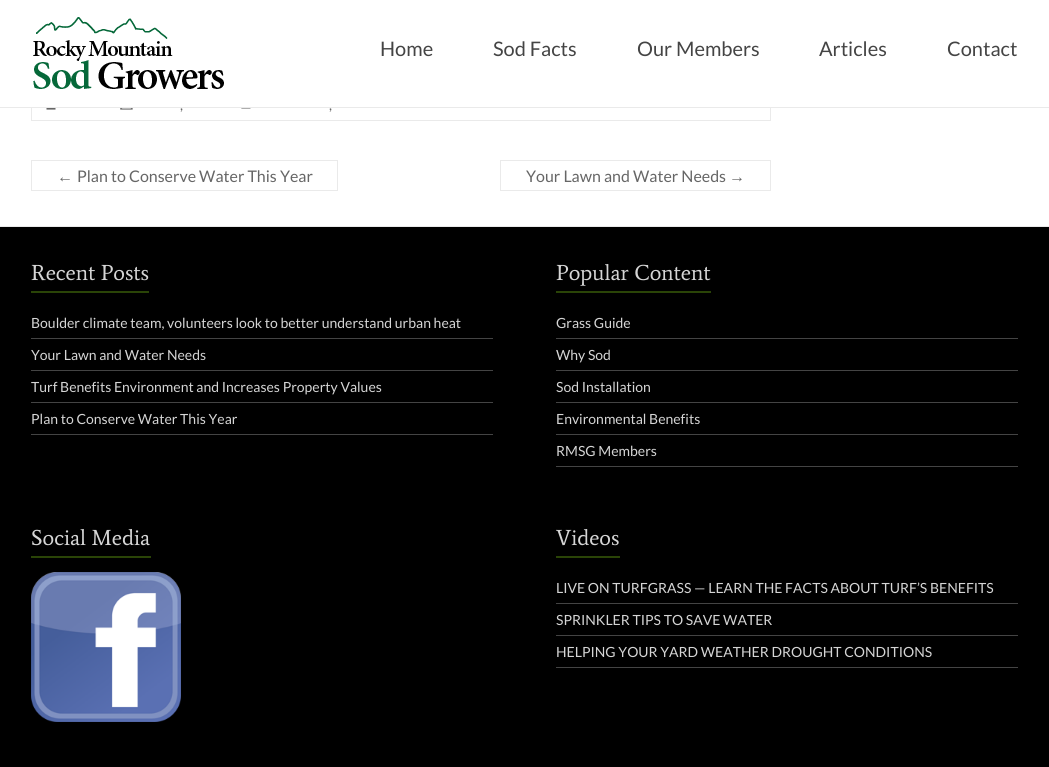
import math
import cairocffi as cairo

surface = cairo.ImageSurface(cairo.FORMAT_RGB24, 1049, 767)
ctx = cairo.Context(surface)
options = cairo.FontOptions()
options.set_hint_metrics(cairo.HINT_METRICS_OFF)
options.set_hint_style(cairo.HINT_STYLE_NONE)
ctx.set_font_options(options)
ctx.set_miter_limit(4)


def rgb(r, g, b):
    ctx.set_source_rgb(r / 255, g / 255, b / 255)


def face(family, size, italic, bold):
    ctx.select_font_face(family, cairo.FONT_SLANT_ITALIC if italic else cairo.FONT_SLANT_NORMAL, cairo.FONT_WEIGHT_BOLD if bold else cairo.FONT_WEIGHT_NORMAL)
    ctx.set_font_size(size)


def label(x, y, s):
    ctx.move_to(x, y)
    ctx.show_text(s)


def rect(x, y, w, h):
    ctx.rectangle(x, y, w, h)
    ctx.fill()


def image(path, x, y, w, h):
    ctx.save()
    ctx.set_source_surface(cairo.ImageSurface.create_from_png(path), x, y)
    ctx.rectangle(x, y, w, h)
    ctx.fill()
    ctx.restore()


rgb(255, 255, 255)
ctx.paint()
ctx.rectangle(31.5, 89.5, 739, 31)
rgb(234, 234, 234)
ctx.set_line_width(1)
ctx.stroke()
rgb(255, 255, 255)
rect(31, 89, 740, 18)
rgb(234, 234, 234)
rect(0, 107, 1049, 1)
image('image0.png', 33, 17, 191, 72)
face('Lato', 20, 0, 0)
rgb(68, 68, 68)
label(380, 56, 'Home')
label(493, 56, 'Sod Facts')
label(637, 56, 'Our Members')
label(819, 56, 'Articles')
label(947, 56, 'Contact')
image('image1.png', 46, 108, 10, 2)
image('image2.png', 120, 108, 13, 2)
face('Lato', 14, 0, 0)
rgb(102, 102, 102)
label(180, 110, ',')
image('image3.png', 241, 108, 10, 1)
label(329, 110, ',')
face('Liberation Sans', 16, 0, 0)
label(57, 182, '←')
rgb(234, 234, 234)
rect(31, 190, 42, 1)
rect(31, 160, 307, 1)
rect(31, 160, 1, 31)
rect(337, 160, 1, 31)
rect(73, 190, 265, 1)
face('Lato', 16, 0, 0)
rgb(102, 102, 102)
label(77, 182, 'Plan to Conserve Water This Year')
label(526, 182, 'Your Lawn and Water Needs')
rgb(234, 234, 234)
rect(500, 160, 271, 1)
rect(500, 190, 229, 1)
rect(500, 160, 1, 31)
face('Liberation Sans', 16, 0, 0)
rgb(102, 102, 102)
label(729, 182, '→')
rgb(234, 234, 234)
rect(770, 160, 1, 31)
rect(729, 190, 42, 1)
rgb(0, 0, 0)
rect(0, 227, 1049, 540)
rgb(234, 234, 234)
rect(0, 226, 1049, 1)
face('Average', 22, 0, 0)
rgb(213, 213, 213)
label(31, 280, 'Recent Posts')
rgb(42, 68, 7)
rect(31, 291, 118, 2)
rgb(68, 68, 68)
rect(31, 338, 462, 1)
face('Lato', 14, 0, 0)
rgb(213, 213, 213)
label(31, 328, 'Boulder climate team, volunteers look to better understand urban heat')
rgb(68, 68, 68)
rect(31, 370, 462, 1)
rgb(213, 213, 213)
label(31, 360, 'Your Lawn and Water Needs')
rgb(68, 68, 68)
rect(31, 402, 462, 1)
rgb(213, 213, 213)
label(31, 392, 'Turf Benefits Environment and Increases Property Values')
rgb(68, 68, 68)
rect(31, 434, 462, 1)
rgb(213, 213, 213)
label(31, 424, 'Plan to Conserve Water This Year')
face('Average', 22, 0, 0)
label(556, 280, 'Popular Content')
rgb(42, 68, 7)
rect(556, 291, 155, 2)
rgb(68, 68, 68)
rect(556, 338, 462, 1)
face('Lato', 14, 0, 0)
rgb(213, 213, 213)
label(556, 328, 'Grass Guide')
rgb(68, 68, 68)
rect(556, 370, 462, 1)
rgb(213, 213, 213)
label(556, 360, 'Why Sod')
rgb(68, 68, 68)
rect(556, 402, 462, 1)
rgb(213, 213, 213)
label(556, 392, 'Sod Installation')
rgb(68, 68, 68)
rect(556, 434, 462, 1)
rgb(213, 213, 213)
label(556, 424, 'Environmental Benefits')
rgb(68, 68, 68)
rect(556, 466, 462, 1)
rgb(213, 213, 213)
label(556, 456, 'RMSG Members')
face('Average', 22, 0, 0)
label(31, 545, 'Social Media')
rgb(42, 68, 7)
rect(31, 556, 120, 2)
image('image4.png', 31, 572, 150, 150)
rgb(213, 213, 213)
label(556, 545, 'Videos')
rgb(42, 68, 7)
rect(556, 556, 64, 2)
rgb(68, 68, 68)
rect(556, 603, 462, 1)
face('Lato', 14, 0, 0)
rgb(213, 213, 213)
label(556, 593, 'LIVE ON TURFGRASS — LEARN THE FACTS ABOUT TURF’S BENEFITS')
rgb(68, 68, 68)
rect(556, 635, 462, 1)
rgb(213, 213, 213)
label(556, 625, 'SPRINKLER TIPS TO SAVE WATER')
rgb(68, 68, 68)
rect(556, 667, 462, 1)
rgb(213, 213, 213)
label(556, 657, 'HELPING YOUR YARD WEATHER DROUGHT CONDITIONS')
surface.write_to_png('render.png')
